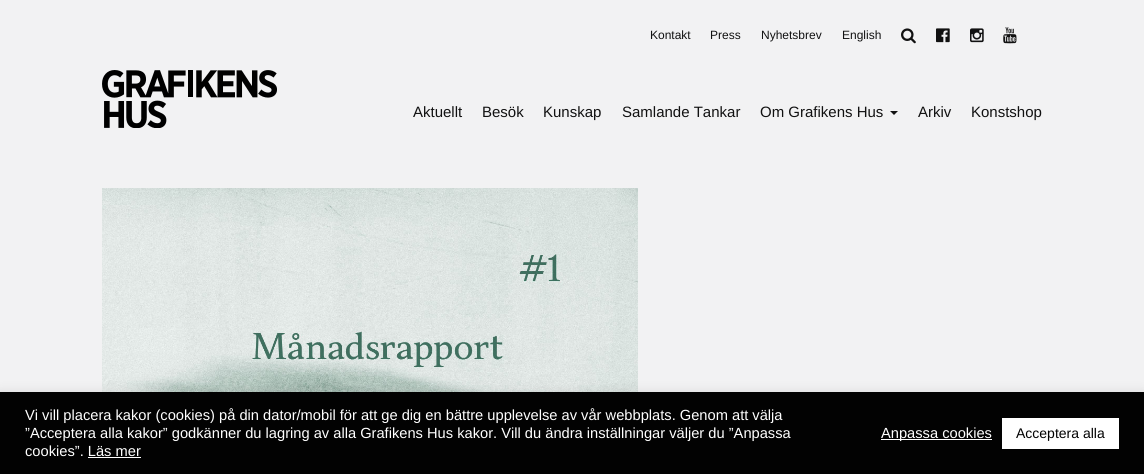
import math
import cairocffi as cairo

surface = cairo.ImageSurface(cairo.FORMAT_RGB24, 1144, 474)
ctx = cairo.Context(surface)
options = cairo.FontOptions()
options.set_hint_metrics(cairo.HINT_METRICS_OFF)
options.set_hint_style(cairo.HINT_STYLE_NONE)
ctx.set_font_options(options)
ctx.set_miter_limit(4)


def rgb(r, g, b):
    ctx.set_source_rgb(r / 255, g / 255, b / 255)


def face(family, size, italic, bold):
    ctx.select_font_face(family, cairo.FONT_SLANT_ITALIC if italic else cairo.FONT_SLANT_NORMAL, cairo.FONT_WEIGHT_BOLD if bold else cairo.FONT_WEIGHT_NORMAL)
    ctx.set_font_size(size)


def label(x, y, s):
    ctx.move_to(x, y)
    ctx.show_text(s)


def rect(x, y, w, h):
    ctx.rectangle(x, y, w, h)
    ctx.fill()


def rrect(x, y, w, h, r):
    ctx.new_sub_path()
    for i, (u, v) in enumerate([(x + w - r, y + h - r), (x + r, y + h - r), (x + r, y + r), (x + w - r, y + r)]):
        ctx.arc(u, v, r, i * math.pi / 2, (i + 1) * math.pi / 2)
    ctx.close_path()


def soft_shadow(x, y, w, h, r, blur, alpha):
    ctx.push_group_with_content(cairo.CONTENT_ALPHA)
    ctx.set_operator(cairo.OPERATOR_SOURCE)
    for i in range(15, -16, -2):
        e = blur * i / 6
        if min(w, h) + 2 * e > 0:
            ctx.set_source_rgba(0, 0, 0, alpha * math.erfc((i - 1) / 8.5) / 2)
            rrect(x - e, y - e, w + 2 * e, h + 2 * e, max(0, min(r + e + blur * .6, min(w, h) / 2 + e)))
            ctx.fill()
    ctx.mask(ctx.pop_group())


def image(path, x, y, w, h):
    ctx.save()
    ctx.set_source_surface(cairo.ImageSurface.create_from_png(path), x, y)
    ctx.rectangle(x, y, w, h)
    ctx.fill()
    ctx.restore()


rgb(242, 242, 243)
ctx.paint()
face('Liberation Sans', 12, 0, 0)
rgb(17, 17, 17)
label(650, 39, 'Kontakt')
label(710, 39, 'Press')
label(761, 39, 'Nyhetsbrev')
label(842, 39, 'English')
image('image0.png', 901, 28, 15, 16)
image('image1.png', 936, 28, 14, 15)
image('image2.png', 970, 28, 14, 15)
image('image3.png', 1003, 27, 14, 17)
image('image4.png', 102, 70, 175, 58)
face('Liberation Sans', 15, 0, 0)
label(413, 117, 'Aktuellt')
label(482, 117, 'Besök')
label(543, 117, 'Kunskap')
label(622, 117, 'Samlande Tankar')
label(760, 117, 'Om Grafikens Hus')
ctx.new_path()
ctx.move_to(890, 111)
ctx.line_to(898, 111)
ctx.line_to(894, 115)
ctx.close_path()
ctx.fill()
label(918, 117, 'Arkiv')
label(971, 117, 'Konstshop')
image('image5.png', 102, 188, 536, 204)
rgb(172, 171, 171)
soft_shadow(0, 391, 1144, 82, 0, 5, 0.3)
rgb(2, 2, 2)
rect(0, 392, 1144, 82)
face('Liberation Sans', 14.67, 0, 0)
rgb(255, 255, 255)
label(25, 420, 'Vi vill placera kakor (cookies) på din dator/mobil för att ge dig en bättre upplevelse av vår webbplats. Genom att välja')
label(25, 438, '”Acceptera alla kakor” godkänner du lagring av alla Grafikens Hus kakor. Vill du ändra inställningar väljer du ”Anpassa')
label(25, 456, 'cookies”. Läs mer')
rect(88, 457, 53, 1)
rect(881, 439, 111, 1)
label(881, 438, 'Anpassa cookies')
rect(1002, 418, 117, 31)
face('Liberation Sans', 14, 0, 0)
rgb(2, 2, 2)
label(1016, 438, 'Acceptera alla')
surface.write_to_png('render.png')
